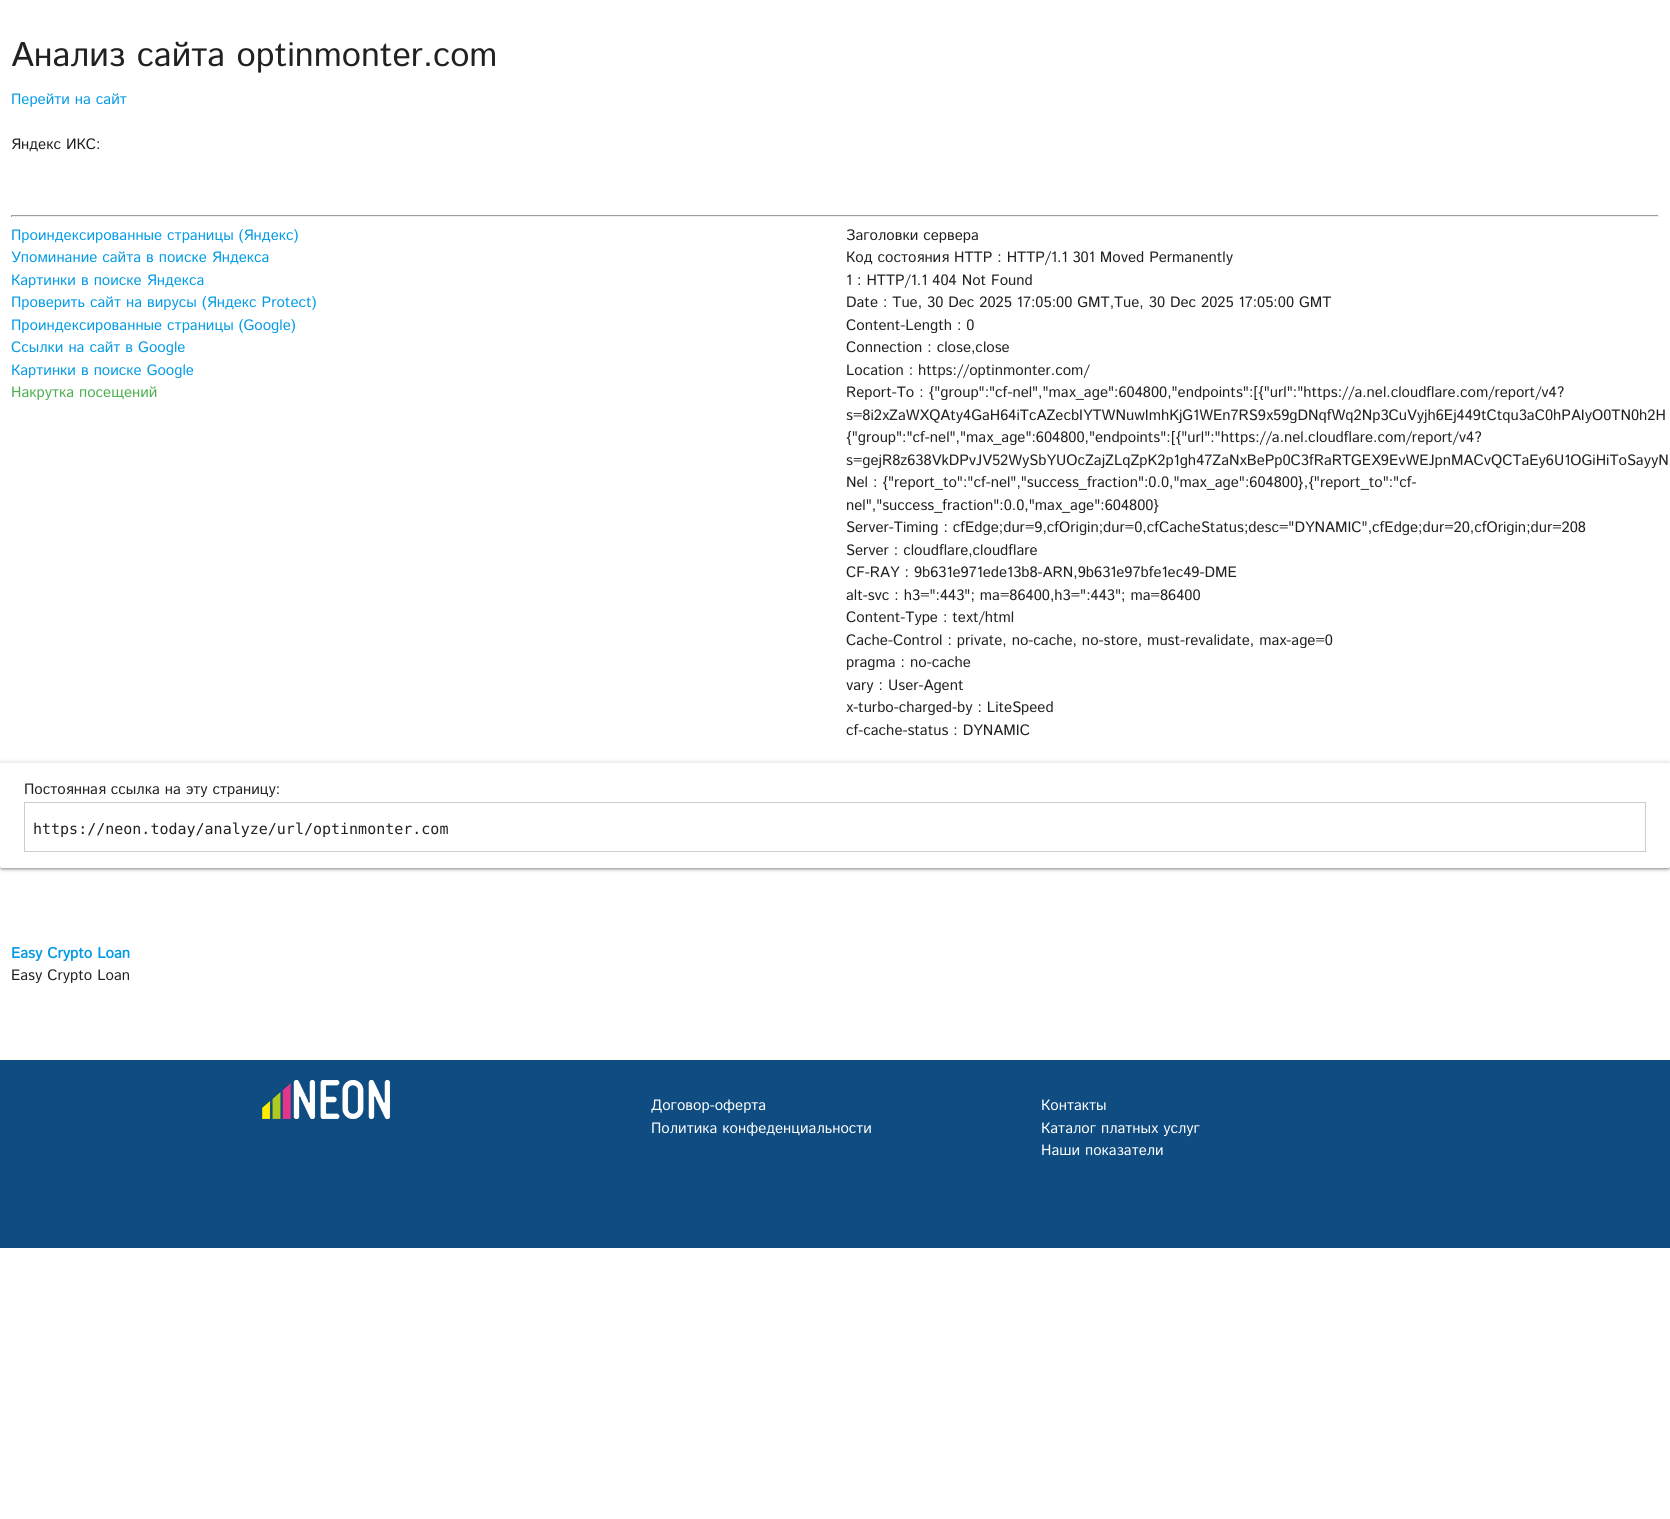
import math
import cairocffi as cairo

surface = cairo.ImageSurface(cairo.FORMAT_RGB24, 1670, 1519)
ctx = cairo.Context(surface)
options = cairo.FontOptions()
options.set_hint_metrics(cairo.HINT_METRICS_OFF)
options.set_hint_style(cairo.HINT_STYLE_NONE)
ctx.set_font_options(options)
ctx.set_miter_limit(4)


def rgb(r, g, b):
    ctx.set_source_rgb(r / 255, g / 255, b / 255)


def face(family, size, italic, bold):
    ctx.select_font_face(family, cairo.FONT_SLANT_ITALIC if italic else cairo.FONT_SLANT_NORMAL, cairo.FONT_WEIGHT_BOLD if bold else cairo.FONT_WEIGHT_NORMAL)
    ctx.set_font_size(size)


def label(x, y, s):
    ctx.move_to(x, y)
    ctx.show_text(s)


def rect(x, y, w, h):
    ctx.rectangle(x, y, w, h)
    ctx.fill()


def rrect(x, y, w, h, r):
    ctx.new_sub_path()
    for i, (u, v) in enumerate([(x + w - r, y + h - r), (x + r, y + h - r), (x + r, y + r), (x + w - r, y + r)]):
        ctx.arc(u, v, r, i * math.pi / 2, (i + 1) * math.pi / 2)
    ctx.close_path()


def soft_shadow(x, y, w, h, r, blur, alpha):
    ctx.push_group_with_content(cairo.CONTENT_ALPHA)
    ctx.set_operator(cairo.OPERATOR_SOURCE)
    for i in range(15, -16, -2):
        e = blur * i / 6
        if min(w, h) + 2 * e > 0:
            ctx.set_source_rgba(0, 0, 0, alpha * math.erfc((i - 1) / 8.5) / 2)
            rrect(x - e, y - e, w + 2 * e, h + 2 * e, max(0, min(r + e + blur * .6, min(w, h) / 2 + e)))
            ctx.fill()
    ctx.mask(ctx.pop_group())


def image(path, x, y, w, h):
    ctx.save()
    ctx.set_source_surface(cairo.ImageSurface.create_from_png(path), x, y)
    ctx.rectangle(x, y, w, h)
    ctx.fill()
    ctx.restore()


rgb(255, 255, 255)
ctx.paint()
face('Istok Web', 34.25, 0, 0)
rgb(33, 33, 33)
label(11, 66, 'Анализ сайта optinmonter.com')
face('Istok Web', 15, 0, 0)
rgb(3, 155, 229)
label(11, 104, 'Перейти на сайт')
rgb(33, 33, 33)
label(11, 149, 'Яндекс ИКС:')
rgb(159, 159, 159)
rect(11, 215, 1648, 1)
rgb(238, 238, 238)
rect(1658, 215, 1, 2)
rect(11, 216, 1648, 1)
rgb(159, 159, 159)
rect(11, 215, 1, 2)
rgb(3, 155, 229)
label(11, 240, 'Проиндексированные страницы (Яндекс)')
label(11, 262, 'Упоминание сайта в поиске Яндекса')
label(11, 285, 'Картинки в поиске Яндекса')
label(11, 307, 'Проверить сайт на вирусы (Яндекс Protect)')
label(11, 330, 'Проиндексированные страницы (Google)')
label(11, 352, 'Ссылки на сайт в Google')
label(11, 375, 'Картинки в поиске Google')
rgb(76, 175, 80)
label(11, 397, 'Накрутка посещений')
rgb(33, 33, 33)
label(846, 240, 'Заголовки сервера')
label(846, 262, 'Код состояния HTTP : HTTP/1.1 301 Moved Permanently')
label(846, 285, '1 : HTTP/1.1 404 Not Found')
label(846, 307, 'Date : Tue, 30 Dec 2025 17:05:00 GMT,Tue, 30 Dec 2025 17:05:00 GMT')
label(846, 330, 'Content-Length : 0')
label(846, 352, 'Connection : close,close')
label(846, 375, 'Location : https://optinmonter.com/')
label(846, 397, 'Report-To : {"group":"cf-nel","max_age":604800,"endpoints":[{"url":"https://a.nel.cloudflare.com/report/v4?')
label(846, 420, 's=8i2xZaWXQAty4GaH64iTcAZecbIYTWNuwImhKjG1WEn7RS9x59gDNqfWq2Np3CuVyjh6Ej449tCtqu3aC0hPAIyO0TN0h2H')
label(846, 442, '{"group":"cf-nel","max_age":604800,"endpoints":[{"url":"https://a.nel.cloudflare.com/report/v4?')
label(846, 465, 's=gejR8z638VkDPvJV52WySbYUOcZajZLqZpK2p1gh47ZaNxBePp0C3fRaRTGEX9EvWEJpnMACvQCTaEy6U1OGiHiToSayyN')
label(846, 487, 'Nel : {"report_to":"cf-nel","success_fraction":0.0,"max_age":604800},{"report_to":"cf-')
label(846, 510, 'nel","success_fraction":0.0,"max_age":604800}')
label(846, 532, 'Server-Timing : cfEdge;dur=9,cfOrigin;dur=0,cfCacheStatus;desc="DYNAMIC",cfEdge;dur=20,cfOrigin;dur=208')
label(846, 555, 'Server : cloudflare,cloudflare')
label(846, 577, 'CF-RAY : 9b631e971ede13b8-ARN,9b631e97bfe1ec49-DME')
label(846, 600, 'alt-svc : h3=":443"; ma=86400,h3=":443"; ma=86400')
label(846, 622, 'Content-Type : text/html')
label(846, 645, 'Cache-Control : private, no-cache, no-store, must-revalidate, max-age=0')
label(846, 667, 'pragma : no-cache')
label(846, 690, 'vary : User-Agent')
label(846, 712, 'x-turbo-charged-by : LiteSpeed')
label(846, 735, 'cf-cache-status : DYNAMIC')
rgb(0, 0, 0)
soft_shadow(0, 763, 1670, 106, 2, 2.5, 0.2)
soft_shadow(2, 767, 1666, 102, 0, 0.5, 0.12)
soft_shadow(0, 764, 1670, 106, 2, 1, 0.14)
rgb(255, 255, 255)
ctx.new_path()
ctx.move_to(0, 762)
ctx.line_to(1670, 762)
ctx.line_to(1670, 866)
ctx.curve_to(1670, 867, 1669, 868, 1668, 868)
ctx.line_to(2, 868)
ctx.curve_to(1, 868, 0, 867, 0, 866)
ctx.close_path()
ctx.fill()
rgb(236, 236, 236)
rect(0, 762, 1670, 1)
rgb(33, 33, 33)
label(24, 794, 'Постоянная ссылка на эту страницу:')
ctx.rectangle(24.5, 802.5, 1621, 49)
rgb(204, 204, 204)
ctx.set_line_width(1)
ctx.stroke()
face('DejaVu Sans Mono', 15, 0, 0)
rgb(33, 33, 33)
label(33, 834, 'https://neon.today/analyze/url/optinmonter.com')
face('Istok Web', 15, 0, 1)
rgb(3, 155, 229)
label(11, 958, 'Easy Crypto Loan')
face('Istok Web', 15, 0, 0)
rgb(33, 33, 33)
label(11, 980, 'Easy Crypto Loan')
rgb(15, 76, 129)
rect(0, 1060, 1670, 188)
image('image0.png', 262, 1080, 128, 39)
rgb(255, 255, 255)
label(651, 1110, 'Договор-оферта')
label(651, 1133, 'Политика конфеденциальности')
label(1041, 1110, 'Контакты')
label(1041, 1133, 'Каталог платных услуг')
label(1041, 1155, 'Наши показатели')
surface.write_to_png('render.png')
